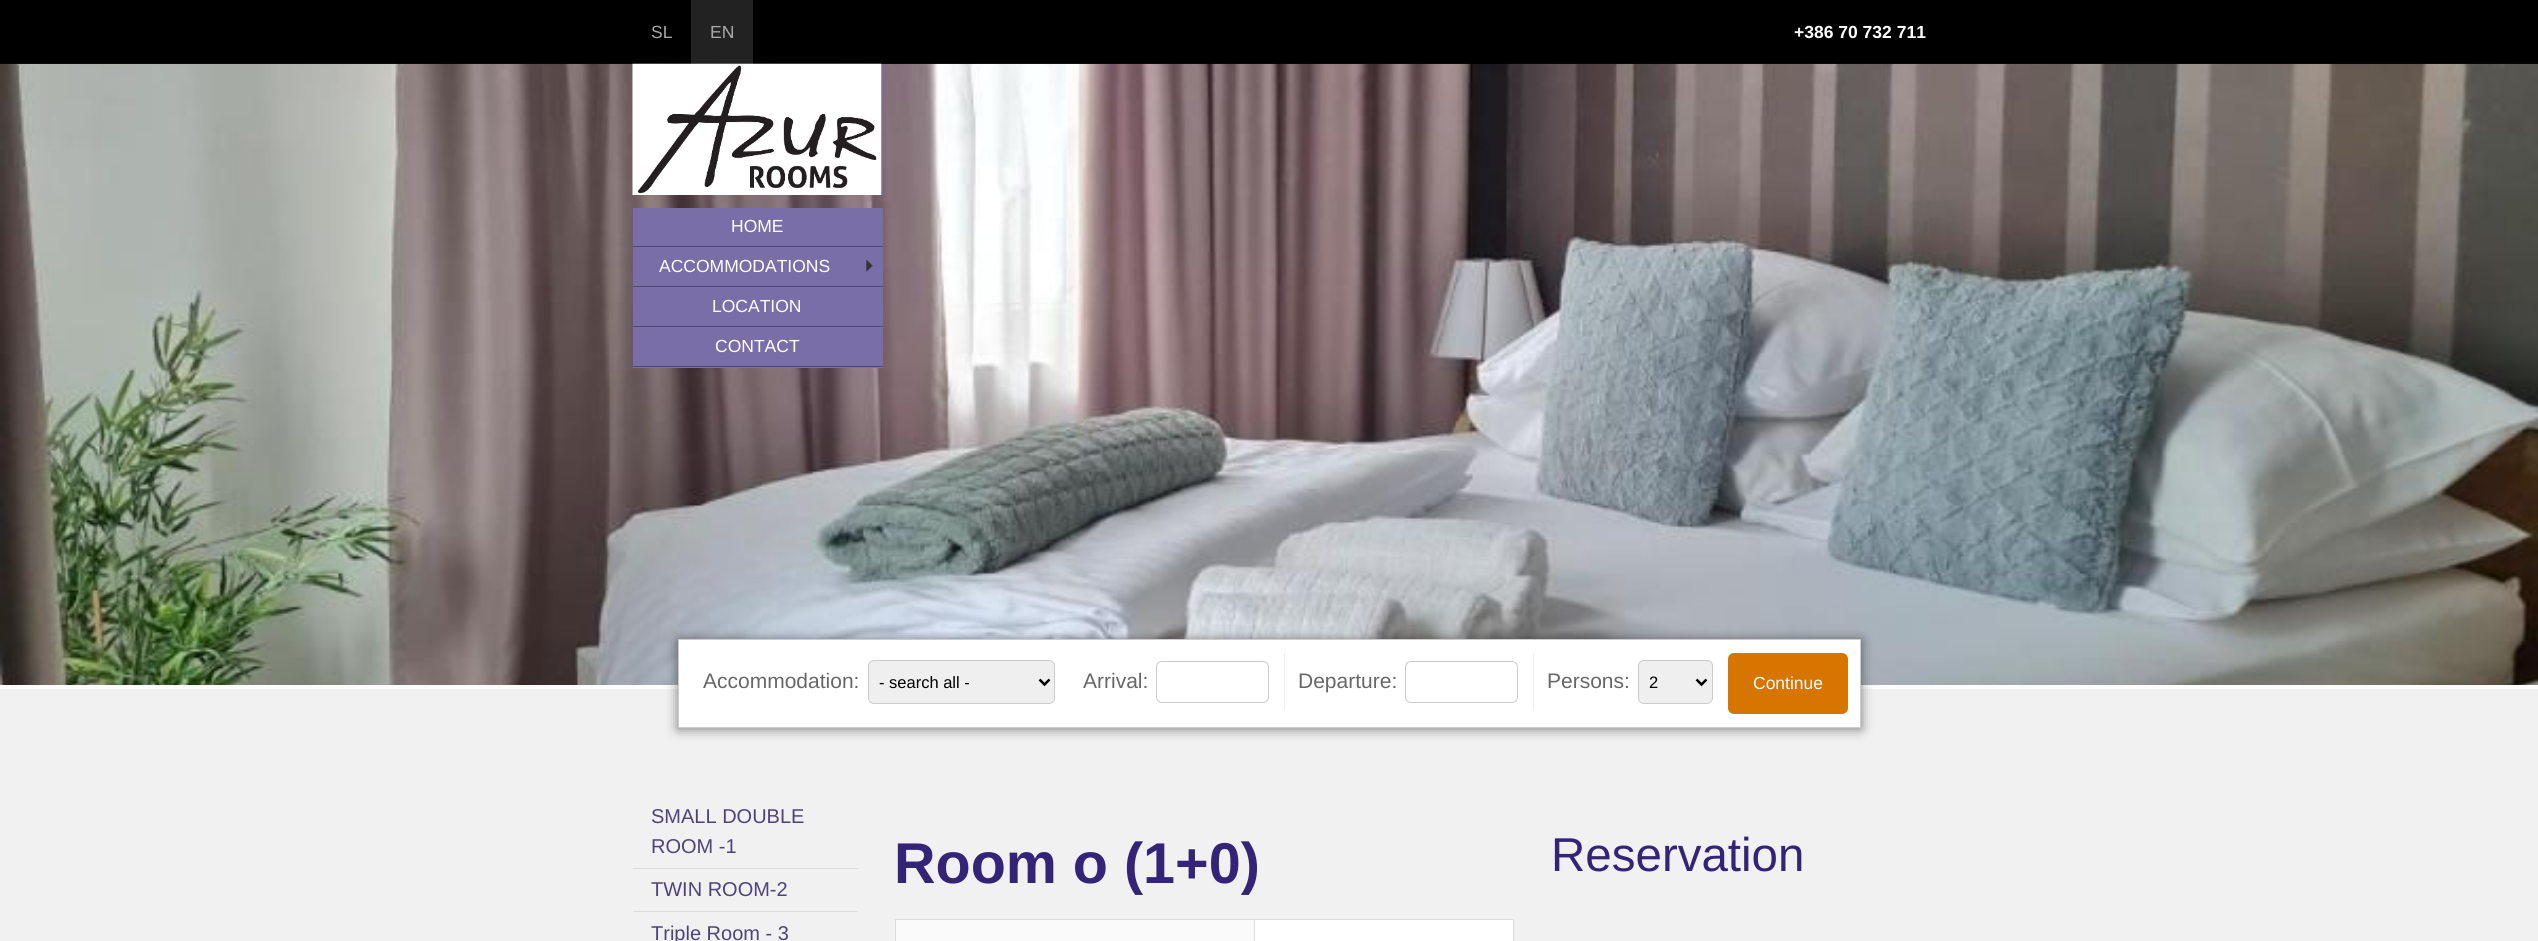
import math
import cairocffi as cairo

surface = cairo.ImageSurface(cairo.FORMAT_RGB24, 2538, 941)
ctx = cairo.Context(surface)
options = cairo.FontOptions()
options.set_hint_metrics(cairo.HINT_METRICS_OFF)
options.set_hint_style(cairo.HINT_STYLE_NONE)
ctx.set_font_options(options)
ctx.set_miter_limit(4)


def rgb(r, g, b):
    ctx.set_source_rgb(r / 255, g / 255, b / 255)


def face(family, size, italic, bold):
    ctx.select_font_face(family, cairo.FONT_SLANT_ITALIC if italic else cairo.FONT_SLANT_NORMAL, cairo.FONT_WEIGHT_BOLD if bold else cairo.FONT_WEIGHT_NORMAL)
    ctx.set_font_size(size)


def label(x, y, s):
    ctx.move_to(x, y)
    ctx.show_text(s)


def rect(x, y, w, h):
    ctx.rectangle(x, y, w, h)
    ctx.fill()


def rrect(x, y, w, h, r):
    ctx.new_sub_path()
    for i, (u, v) in enumerate([(x + w - r, y + h - r), (x + r, y + h - r), (x + r, y + r), (x + w - r, y + r)]):
        ctx.arc(u, v, r, i * math.pi / 2, (i + 1) * math.pi / 2)
    ctx.close_path()


def soft_shadow(x, y, w, h, r, blur, alpha):
    ctx.push_group_with_content(cairo.CONTENT_ALPHA)
    ctx.set_operator(cairo.OPERATOR_SOURCE)
    for i in range(15, -16, -2):
        e = blur * i / 6
        if min(w, h) + 2 * e > 0:
            ctx.set_source_rgba(0, 0, 0, alpha * math.erfc((i - 1) / 8.5) / 2)
            rrect(x - e, y - e, w + 2 * e, h + 2 * e, max(0, min(r + e + blur * .6, min(w, h) / 2 + e)))
            ctx.fill()
    ctx.mask(ctx.pop_group())


def image(path, x, y, w, h):
    ctx.save()
    ctx.set_source_surface(cairo.ImageSurface.create_from_png(path), x, y)
    ctx.rectangle(x, y, w, h)
    ctx.fill()
    ctx.restore()


rgb(241, 241, 241)
ctx.paint()
rgb(0, 0, 0)
rect(0, 0, 2538, 64)
face('Liberation Sans', 17.5, 0, 0)
rgb(170, 170, 170)
label(651, 38, 'SL')
rgb(34, 34, 34)
rect(691, 0, 62, 64)
rgb(170, 170, 170)
label(710, 38, 'EN')
face('Liberation Sans', 17.5, 0, 1)
rgb(255, 255, 255)
label(1794, 38, '+386 70 732 711')
rgb(252, 252, 252)
rect(0, 685, 2538, 4)
image('image0.png', 0, 63, 2538, 622)
rgb(122, 110, 168)
rect(881, 64, 2, 131)
image('image1.png', 632, 63, 250, 132)
rect(633, 208, 250, 160)
rgb(79, 75, 112)
rect(633, 246, 250, 1)
face('Liberation Sans', 17.5, 0, 0)
rgb(255, 255, 255)
label(731, 232, 'HOME')
rgb(79, 75, 112)
rect(633, 286, 250, 1)
rgb(255, 255, 255)
label(659, 272, 'ACCOMMODATIONS')
image('image2.png', 866, 259, 7, 13)
rgb(79, 75, 112)
rect(633, 326, 250, 1)
rgb(255, 255, 255)
label(712, 312, 'LOCATION')
rgb(79, 75, 112)
rect(633, 366, 250, 1)
rgb(255, 255, 255)
label(715, 352, 'CONTACT')
rgb(0, 0, 0)
soft_shadow(678, 640, 1183, 89, 0, 6, 0.5)
rgb(255, 255, 255)
ctx.rectangle(678.5, 639.5, 1182, 88)
ctx.fill_preserve()
rgb(204, 204, 204)
ctx.set_line_width(1)
ctx.stroke()
face('Liberation Sans', 21, 0, 0)
rgb(103, 103, 103)
label(703, 688, 'Accommodation:')
rgb(239, 239, 239)
rrect(868.5, 660.5, 186, 43, 5.5)
ctx.fill_preserve()
rgb(204, 204, 204)
ctx.stroke()
ctx.new_path()
ctx.move_to(1039.5, 679.5)
ctx.line_to(1044.5, 684.5)
ctx.line_to(1049.5, 679.5)
rgb(0, 0, 0)
ctx.set_line_width(2.5)
ctx.stroke()
face('Liberation Sans', 16.5, 0, 0)
label(879, 688, '- search all -')
rgb(238, 238, 238)
rect(1284, 653, 1, 57)
face('Liberation Sans', 21, 0, 0)
rgb(103, 103, 103)
label(1083, 688, 'Arrival:')
rrect(1156.5, 661.5, 112, 41, 5.5)
rgb(204, 204, 204)
ctx.set_line_width(1)
ctx.stroke()
rgb(238, 238, 238)
rect(1533, 653, 1, 57)
rgb(103, 103, 103)
label(1298, 688, 'Departure:')
rrect(1405.5, 661.5, 112, 41, 5.5)
rgb(204, 204, 204)
ctx.stroke()
rgb(103, 103, 103)
label(1547, 688, 'Persons:')
rgb(239, 239, 239)
rrect(1638.5, 660.5, 74, 43, 5.5)
ctx.fill_preserve()
rgb(204, 204, 204)
ctx.stroke()
ctx.new_path()
ctx.move_to(1696.5, 679.5)
ctx.line_to(1701.5, 684.5)
ctx.line_to(1706.5, 679.5)
rgb(0, 0, 0)
ctx.set_line_width(2.5)
ctx.stroke()
face('Liberation Sans', 16.5, 0, 0)
label(1649, 688, '2')
rgb(214, 117, 0)
rrect(1728, 653, 120, 61, 6)
ctx.fill()
face('Liberation Sans', 17.5, 0, 0)
rgb(255, 255, 255)
label(1753, 689, 'Continue')
rgb(221, 221, 221)
rect(633, 868, 225, 1)
face('Liberation Sans', 20, 0, 0)
rgb(79, 68, 121)
label(651, 823, 'SMALL DOUBLE')
label(651, 853, 'ROOM -1')
rgb(221, 221, 221)
rect(633, 911, 225, 1)
rgb(79, 68, 121)
label(651, 896, 'TWIN ROOM-2')
label(651, 940, 'Triple Room - 3')
face('Liberation Sans', 57.5, 0, 1)
rgb(52, 36, 119)
label(894, 883, 'Room o (1+0)')
rgb(255, 255, 255)
rect(1255, 920, 258, 21)
rgb(250, 250, 250)
rect(896, 920, 358, 21)
rgb(221, 221, 221)
rect(1254, 919, 260, 1)
rect(1254, 919, 1, 22)
rect(895, 919, 360, 1)
rect(895, 919, 1, 22)
rect(1513, 919, 1, 22)
face('Liberation Sans', 47.5, 0, 0)
rgb(52, 36, 119)
label(1551, 871, 'Reservation')
surface.write_to_png('render.png')
